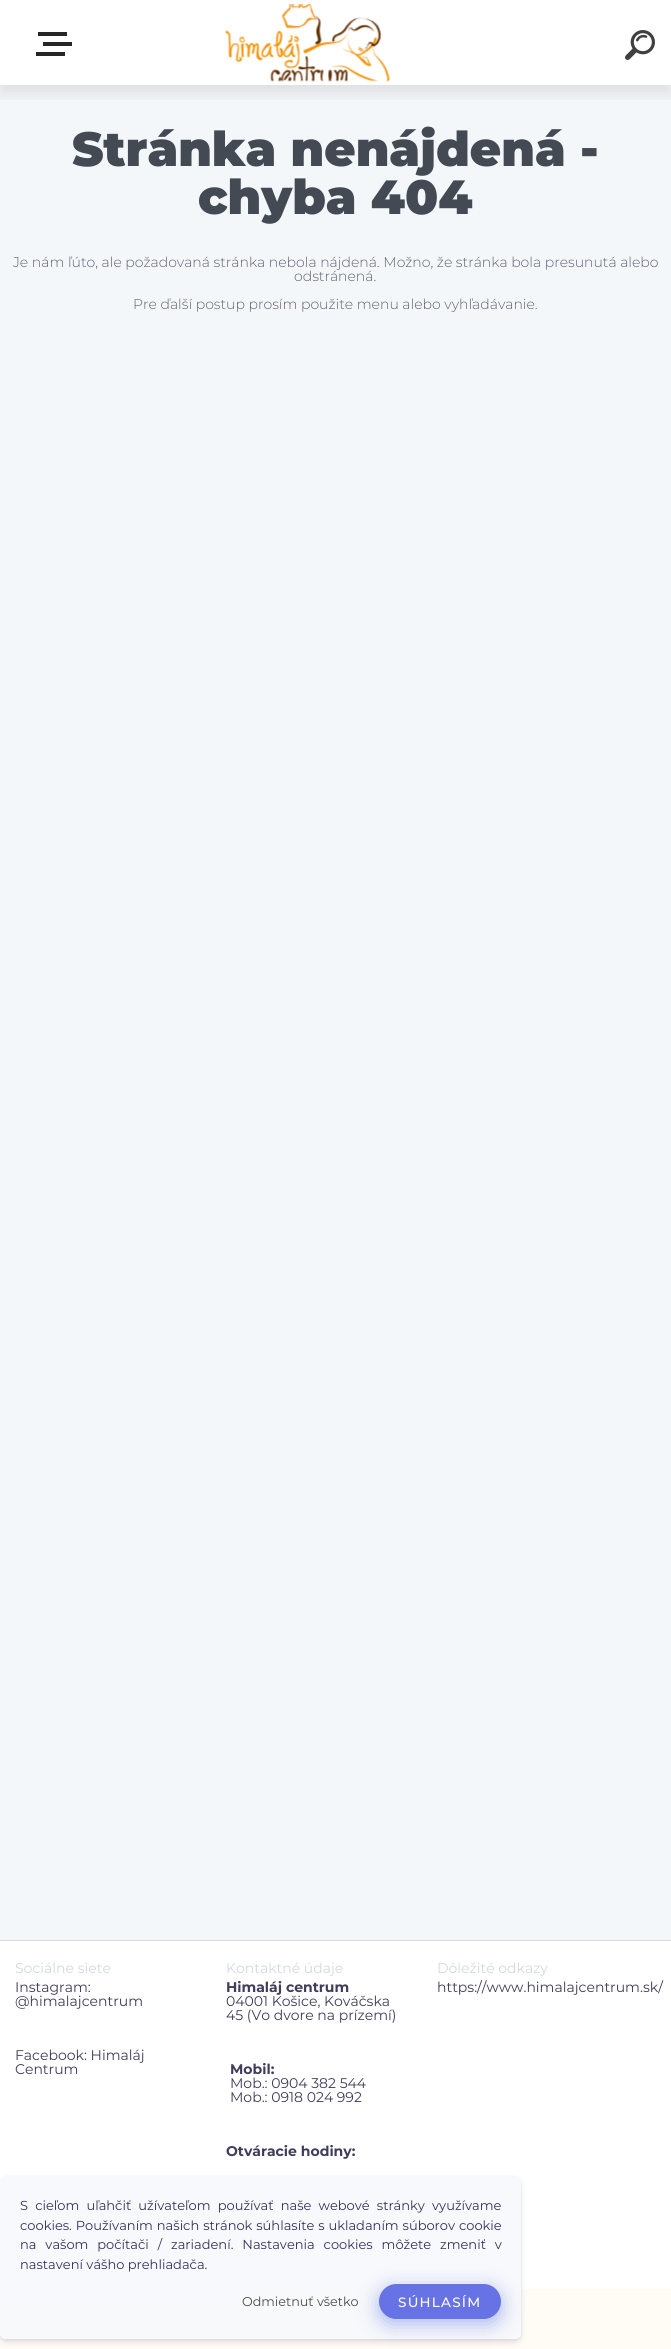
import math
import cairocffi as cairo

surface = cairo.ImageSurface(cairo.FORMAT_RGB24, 671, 2349)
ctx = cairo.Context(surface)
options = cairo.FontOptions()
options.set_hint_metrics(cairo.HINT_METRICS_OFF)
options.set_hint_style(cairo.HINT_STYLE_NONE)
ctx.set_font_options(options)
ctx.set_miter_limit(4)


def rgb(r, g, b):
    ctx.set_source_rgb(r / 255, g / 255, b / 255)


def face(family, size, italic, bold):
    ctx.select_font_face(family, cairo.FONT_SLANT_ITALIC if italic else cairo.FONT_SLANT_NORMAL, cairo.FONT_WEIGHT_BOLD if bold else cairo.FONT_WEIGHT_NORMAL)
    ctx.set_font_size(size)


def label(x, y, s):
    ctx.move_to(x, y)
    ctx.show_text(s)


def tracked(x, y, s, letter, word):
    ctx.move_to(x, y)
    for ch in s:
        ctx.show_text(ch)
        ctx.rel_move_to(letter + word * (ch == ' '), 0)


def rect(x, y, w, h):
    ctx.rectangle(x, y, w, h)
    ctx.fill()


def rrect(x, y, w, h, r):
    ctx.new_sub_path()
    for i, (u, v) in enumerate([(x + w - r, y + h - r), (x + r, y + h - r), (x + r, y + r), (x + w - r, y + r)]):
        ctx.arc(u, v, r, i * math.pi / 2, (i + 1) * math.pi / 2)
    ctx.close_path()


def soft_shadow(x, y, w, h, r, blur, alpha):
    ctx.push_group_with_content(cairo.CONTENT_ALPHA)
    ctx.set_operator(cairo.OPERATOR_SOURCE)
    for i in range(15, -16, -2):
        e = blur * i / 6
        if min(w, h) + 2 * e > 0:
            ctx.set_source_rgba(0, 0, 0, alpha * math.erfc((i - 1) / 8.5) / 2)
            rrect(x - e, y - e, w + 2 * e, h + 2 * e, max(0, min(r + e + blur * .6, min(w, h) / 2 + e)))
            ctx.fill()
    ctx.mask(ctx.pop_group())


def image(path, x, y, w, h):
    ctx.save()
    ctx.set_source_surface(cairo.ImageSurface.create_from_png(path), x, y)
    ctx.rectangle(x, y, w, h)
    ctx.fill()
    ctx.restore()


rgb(255, 255, 255)
ctx.paint()
rgb(244, 247, 249)
rect(0, 85, 671, 1855)
ctx.save()
ctx.rectangle(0, 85, 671, 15)
ctx.clip()
rgb(0, 0, 0)
soft_shadow(0, 8, 671, 85, 0, 8, 0.1)
ctx.restore()
rgb(38, 38, 38)
rect(38, 32, 29, 4)
rect(43, 42, 29, 4)
rect(36, 52, 29, 4)
image('image0.png', 225, 4, 165, 78)
image('image1.png', 625, 30, 30, 30)
face('Montserrat Black', 48, 0, 0)
rgb(67, 74, 84)
label(72, 166, 'Stránka nenájdená -')
label(198, 214, 'chyba 404')
face('Montserrat Light', 14, 0, 0)
rgb(96, 95, 115)
label(13, 267, 'Je nám ľúto, ale požadovaná stránka nebola nájdená. Možno, že stránka bola presunutá alebo')
label(294, 281, 'odstránená.')
label(133, 309, 'Pre ďalší postup prosím použite menu alebo vyhľadávanie.')
rgb(218, 218, 218)
rect(0, 1940, 671, 1)
face('Montserrat', 14, 0, 0)
rgb(210, 216, 224)
label(15, 1973, 'Sociálne siete')
rgb(63, 61, 89)
label(15, 1992, 'Instagram:')
label(15, 2006, '@himalajcentrum')
label(15, 2060, 'Facebook: Himaláj')
label(15, 2074, 'Centrum')
rgb(210, 216, 224)
label(226, 1973, 'Kontaktné údaje')
face('Montserrat', 14, 0, 1)
rgb(63, 61, 89)
label(226, 1992, 'Himaláj centrum')
face('Montserrat', 14, 0, 0)
label(226, 2006, '04001 Košice, Kováčska')
label(226, 2020, '45 (Vo dvore na prízemí)')
face('Montserrat', 14, 0, 1)
label(230, 2074, 'Mobil:')
face('Montserrat', 14, 0, 0)
label(230, 2088, 'Mob.: 0904 382 544')
label(230, 2102, 'Mob.: 0918 024 992')
face('Montserrat', 14, 0, 1)
label(226, 2156, 'Otváracie hodiny:')
face('Montserrat', 14, 0, 0)
rgb(210, 216, 224)
label(437, 1973, 'Dôležité odkazy')
rgb(63, 61, 89)
label(437, 1992, 'https://www.himalajcentrum.sk/')
rgb(245, 160, 34)
rect(0, 2289, 671, 60)
ctx.set_source_rgba(1, 1, 1, 0.95)
rect(0, 2289, 671, 60)
ctx.save()
ctx.set_fill_rule(cairo.FILL_RULE_EVEN_ODD)
ctx.new_path()
ctx.move_to(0, 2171)
ctx.line_to(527, 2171)
ctx.line_to(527, 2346)
ctx.line_to(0, 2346)
ctx.close_path()
ctx.move_to(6, 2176)
ctx.line_to(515, 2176)
ctx.curve_to(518.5, 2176, 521, 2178.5, 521, 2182)
ctx.line_to(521, 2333)
ctx.curve_to(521, 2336.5, 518.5, 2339, 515, 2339)
ctx.line_to(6, 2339)
ctx.curve_to(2.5, 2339, 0, 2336.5, 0, 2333)
ctx.line_to(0, 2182)
ctx.curve_to(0, 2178.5, 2.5, 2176, 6, 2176)
ctx.close_path()
ctx.clip()
rgb(0, 0, 0)
soft_shadow(0, 2177, 521, 163, 6, 1.5, 0.08)
ctx.restore()
ctx.save()
ctx.set_fill_rule(cairo.FILL_RULE_EVEN_ODD)
ctx.new_path()
ctx.move_to(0, 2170)
ctx.line_to(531, 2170)
ctx.line_to(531, 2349)
ctx.line_to(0, 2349)
ctx.close_path()
ctx.move_to(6, 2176)
ctx.line_to(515, 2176)
ctx.curve_to(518.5, 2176, 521, 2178.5, 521, 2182)
ctx.line_to(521, 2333)
ctx.curve_to(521, 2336.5, 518.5, 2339, 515, 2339)
ctx.line_to(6, 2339)
ctx.curve_to(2.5, 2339, 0, 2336.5, 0, 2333)
ctx.line_to(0, 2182)
ctx.curve_to(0, 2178.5, 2.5, 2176, 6, 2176)
ctx.close_path()
ctx.clip()
rgb(50, 50, 93)
soft_shadow(0, 2180, 521, 163, 6, 3, 0.11)
ctx.restore()
ctx.set_source_rgba(0.965, 0.976, 0.988, 0.9)
rrect(0, 2176, 521, 163, 6)
ctx.fill()
face('Montserrat', 13, 0, 0)
rgb(50, 50, 93)
tracked(20, 2210, 'S cieľom uľahčiť užívateľom používať naše webové stránky využívame', 0, 3.75)
tracked(20, 2230, 'cookies. Používaním našich stránok súhlasíte s ukladaním súborov cookie', 0, 0.5)
tracked(20, 2249, 'na vašom počítači / zariadení. Nastavenia cookies môžete zmeniť v', 0, 5.5)
label(20, 2269, 'nastavení vášho prehliadača.')
rgb(58, 84, 214)
soft_shadow(379, 2289, 122, 35, 17.5, 10, 0.4)
face('Montserrat', 12.75, 0, 0)
rgb(74, 75, 75)
label(242, 2306, 'Odmietnuť všetko')
rgb(103, 114, 229)
rrect(379, 2284, 122, 35, 17.5)
ctx.fill()
face('Montserrat Medium', 13.5, 0, 0)
rgb(255, 255, 255)
tracked(398, 2307, 'SÚHLASÍM', 1.25, 0)
surface.write_to_png('render.png')
